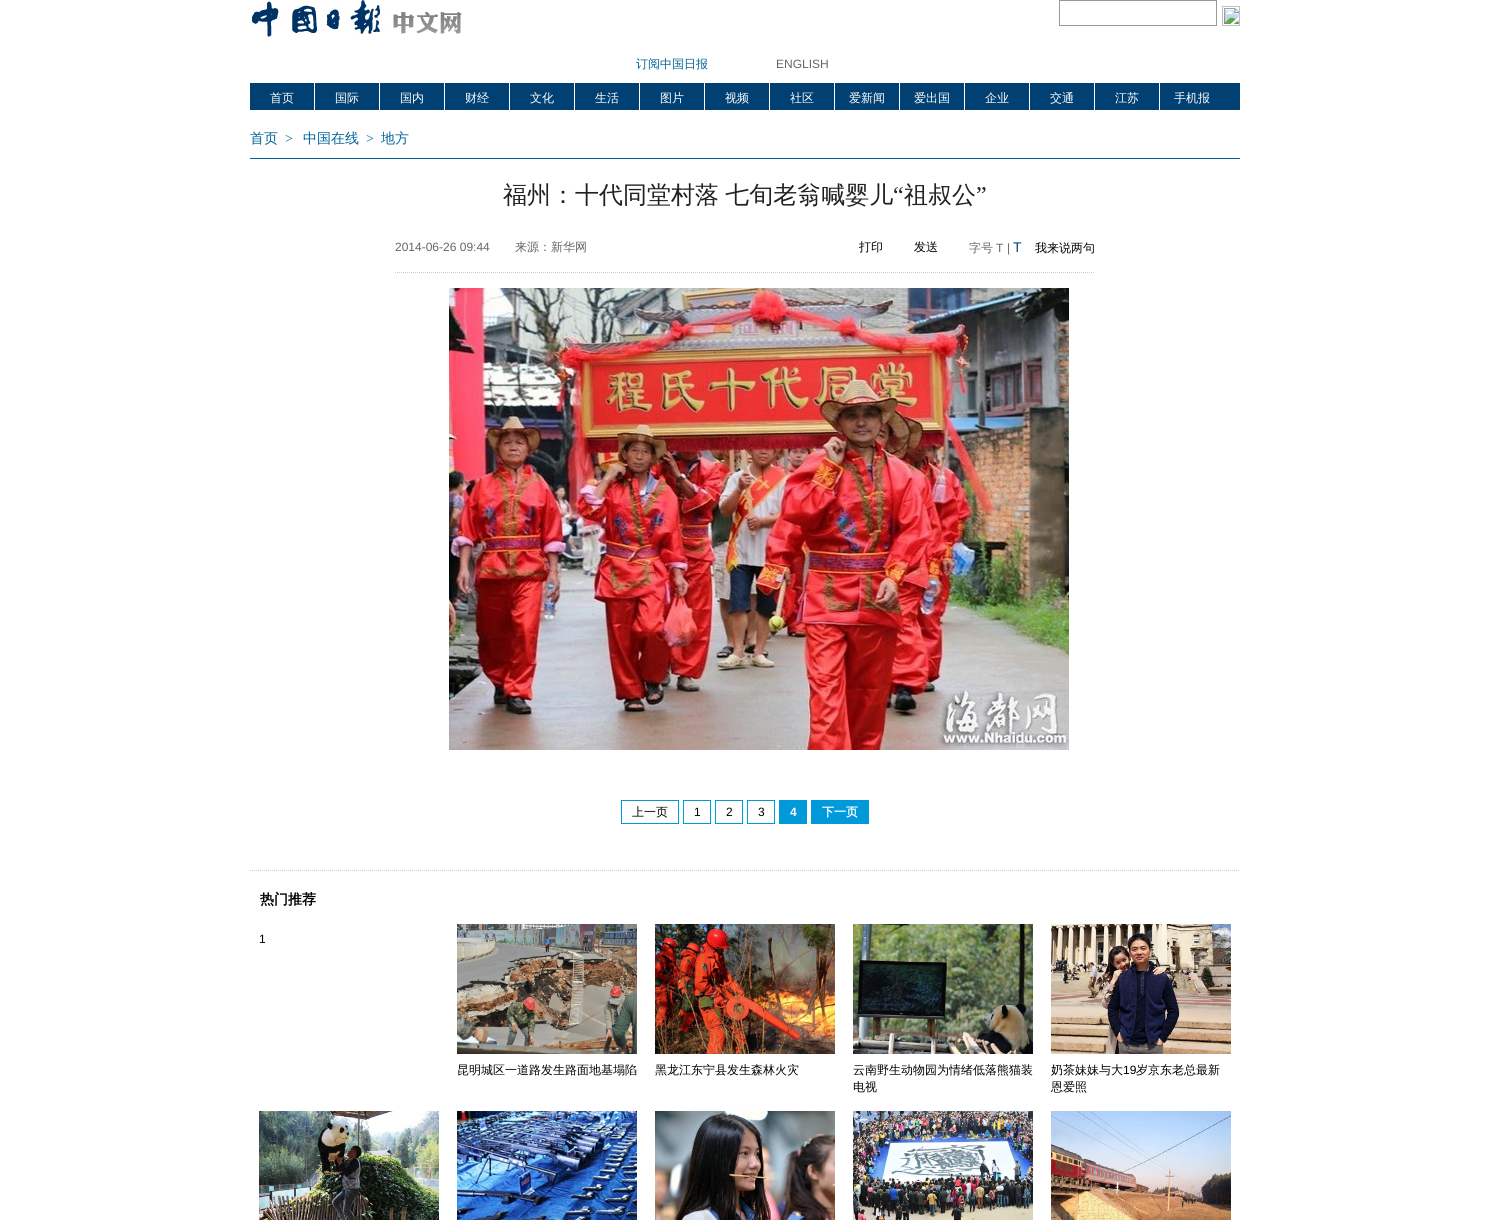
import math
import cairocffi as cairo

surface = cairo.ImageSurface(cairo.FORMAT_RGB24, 1490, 1220)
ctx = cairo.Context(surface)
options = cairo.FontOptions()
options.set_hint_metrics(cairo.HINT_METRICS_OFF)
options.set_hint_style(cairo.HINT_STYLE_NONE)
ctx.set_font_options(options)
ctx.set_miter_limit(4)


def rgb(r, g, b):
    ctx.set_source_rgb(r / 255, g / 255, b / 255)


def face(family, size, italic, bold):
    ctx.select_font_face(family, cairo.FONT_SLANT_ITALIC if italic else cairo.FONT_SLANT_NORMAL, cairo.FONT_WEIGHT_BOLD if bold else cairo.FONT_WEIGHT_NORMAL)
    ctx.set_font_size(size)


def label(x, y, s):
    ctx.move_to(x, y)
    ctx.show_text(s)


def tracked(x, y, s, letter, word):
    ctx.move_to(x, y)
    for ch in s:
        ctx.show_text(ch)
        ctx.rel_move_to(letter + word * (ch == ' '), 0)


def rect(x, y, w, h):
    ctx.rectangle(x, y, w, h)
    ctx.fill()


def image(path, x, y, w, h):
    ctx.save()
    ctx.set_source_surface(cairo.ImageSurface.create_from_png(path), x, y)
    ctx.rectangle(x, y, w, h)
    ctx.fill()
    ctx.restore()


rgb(255, 255, 255)
ctx.paint()
image('image0.png', 250, 0, 212, 37)
ctx.rectangle(1059.5, 0.5, 157, 25)
rgb(153, 153, 153)
ctx.set_line_width(1)
ctx.stroke()
image('image1.png', 1222, 6, 18, 20)
face('WenQuanYi Zen Hei Medium', 12, 0, 0)
rgb(0, 100, 152)
label(636, 68, '订阅中国日报')
face('Liberation Sans', 12, 0, 0)
rgb(102, 102, 102)
label(776, 68, 'ENGLISH')
rgb(1, 64, 115)
rect(250, 83, 990, 27)
rgb(255, 255, 255)
rect(314, 83, 1, 27)
face('WenQuanYi Zen Hei Medium', 12, 0, 0)
label(270, 102, '首页')
rect(379, 83, 1, 27)
label(335, 102, '国际')
rect(444, 83, 1, 27)
label(400, 102, '国内')
rect(509, 83, 1, 27)
label(465, 102, '财经')
rect(574, 83, 1, 27)
label(530, 102, '文化')
rect(639, 83, 1, 27)
label(595, 102, '生活')
rect(704, 83, 1, 27)
label(660, 102, '图片')
rect(769, 83, 1, 27)
label(725, 102, '视频')
rect(834, 83, 1, 27)
label(790, 102, '社区')
rect(899, 83, 1, 27)
label(849, 102, '爱新闻')
rect(964, 83, 1, 27)
label(914, 102, '爱出国')
rect(1029, 83, 1, 27)
label(985, 102, '企业')
rect(1094, 83, 1, 27)
label(1050, 102, '交通')
rect(1159, 83, 1, 27)
label(1115, 102, '江苏')
label(1174, 102, '手机报')
rgb(0, 101, 153)
rect(250, 158, 990, 1)
face('WenQuanYi Zen Hei Medium', 14, 0, 0)
rgb(0, 100, 152)
label(250, 143, '首页')
face('Liberation Serif', 14, 0, 0)
label(285, 143, '>')
face('WenQuanYi Zen Hei Medium', 14, 0, 0)
label(303, 143, '中国在线')
face('Liberation Serif', 14, 0, 0)
label(366, 143, '>')
face('WenQuanYi Zen Hei Medium', 14, 0, 0)
label(381, 143, '地方')
face('WenQuanYi Zen Hei Medium', 24, 0, 0)
rgb(33, 33, 33)
tracked(503, 203, '福州：十代同堂村落 七旬老翁喊婴儿', 0, -1)
face('Liberation Serif', 24, 0, 0)
label(893, 203, '“')
face('WenQuanYi Zen Hei Medium', 24, 0, 0)
label(904, 203, '祖叔公')
face('Liberation Serif', 24, 0, 0)
label(976, 203, '”')
ctx.new_path()
ctx.move_to(395, 272.5)
ctx.line_to(1095, 272.5)
rgb(204, 204, 204)
ctx.set_dash([1, 1])
ctx.stroke()
face('Liberation Sans', 12, 0, 0)
rgb(102, 102, 102)
label(395, 251, '2014-06-26 09:44')
face('WenQuanYi Zen Hei Medium', 12, 0, 0)
label(515, 251, '来源：新华网')
rgb(0, 0, 0)
label(859, 251, '打印')
label(914, 251, '发送')
rgb(102, 102, 102)
label(969, 252, '字号')
face('Liberation Sans', 12, 0, 0)
label(996, 252, 'T')
label(1007, 252, '|')
face('Liberation Sans', 14, 0, 0)
rgb(0, 66, 118)
label(1013, 252, 'T')
face('WenQuanYi Zen Hei Medium', 12, 0, 0)
rgb(0, 0, 0)
label(1035, 252, '我来说两句')
image('image2.png', 449, 288, 620, 462)
ctx.rectangle(621.5, 800.5, 57, 23)
rgb(0, 154, 218)
ctx.set_dash([])
ctx.stroke()
rgb(0, 0, 0)
label(632, 816, '上一页')
ctx.rectangle(683.5, 800.5, 27, 23)
rgb(0, 154, 218)
ctx.stroke()
face('Liberation Sans', 12, 0, 0)
rgb(0, 0, 0)
label(694, 816, '1')
ctx.rectangle(715.5, 800.5, 27, 23)
rgb(0, 154, 218)
ctx.stroke()
rgb(0, 0, 0)
label(726, 816, '2')
ctx.rectangle(747.5, 800.5, 27, 23)
rgb(0, 154, 218)
ctx.stroke()
rgb(0, 0, 0)
label(758, 816, '3')
rgb(0, 154, 218)
rect(779, 800, 28, 24)
face('Liberation Sans', 12, 0, 1)
rgb(255, 255, 255)
label(790, 816, '4')
rgb(0, 154, 218)
rect(811, 800, 58, 24)
face('WenQuanYi Zen Hei', 12, 0, 1)
rgb(255, 255, 255)
label(822, 816, '下一页')
ctx.new_path()
ctx.move_to(250, 870.5)
ctx.line_to(1240, 870.5)
rgb(204, 204, 204)
ctx.set_dash([1, 1])
ctx.stroke()
face('WenQuanYi Zen Hei', 14, 0, 1)
rgb(0, 0, 0)
label(260, 904, '热门推荐')
face('Liberation Sans', 12, 0, 0)
label(259, 943, '1')
image('image3.png', 457, 924, 180, 130)
face('WenQuanYi Zen Hei Medium', 12, 0, 0)
label(457, 1074, '昆明城区一道路发生路面地基塌陷')
image('image4.png', 655, 924, 180, 130)
label(655, 1074, '黑龙江东宁县发生森林火灾')
image('image5.png', 853, 924, 180, 130)
label(853, 1074, '云南野生动物园为情绪低落熊猫装')
label(853, 1091, '电视')
image('image6.png', 1051, 924, 180, 130)
label(1051, 1074, '奶茶妹妹与大')
face('Liberation Sans', 12, 0, 0)
label(1123, 1074, '19')
face('WenQuanYi Zen Hei Medium', 12, 0, 0)
label(1136, 1074, '岁京东老总最新')
label(1051, 1091, '恩爱照')
image('image7.png', 259, 1111, 180, 109)
image('image8.png', 457, 1111, 180, 109)
image('image9.png', 655, 1111, 180, 109)
image('image10.png', 853, 1111, 180, 109)
image('image11.png', 1051, 1111, 180, 109)
surface.write_to_png('render.png')
